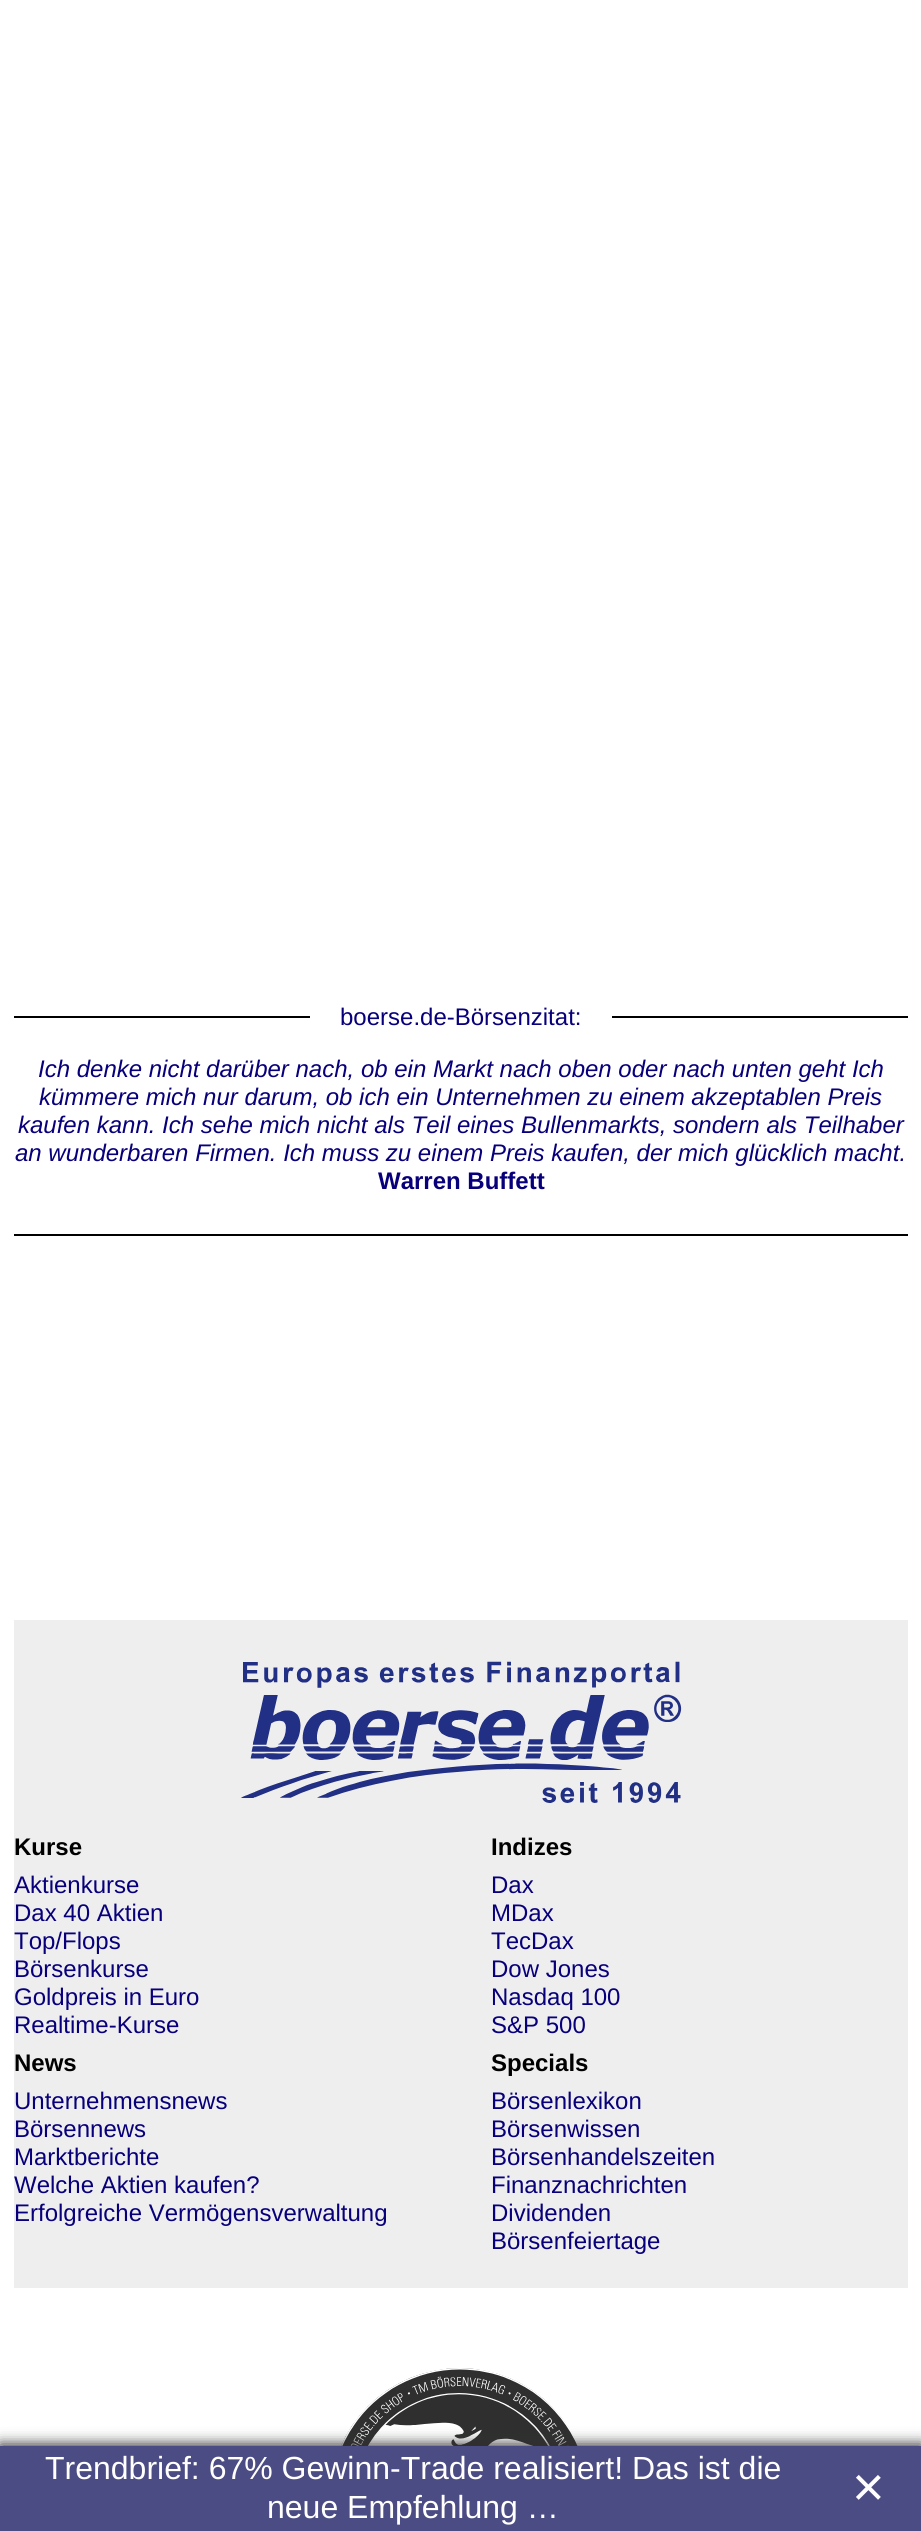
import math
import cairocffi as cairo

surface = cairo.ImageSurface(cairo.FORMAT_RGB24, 921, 2531)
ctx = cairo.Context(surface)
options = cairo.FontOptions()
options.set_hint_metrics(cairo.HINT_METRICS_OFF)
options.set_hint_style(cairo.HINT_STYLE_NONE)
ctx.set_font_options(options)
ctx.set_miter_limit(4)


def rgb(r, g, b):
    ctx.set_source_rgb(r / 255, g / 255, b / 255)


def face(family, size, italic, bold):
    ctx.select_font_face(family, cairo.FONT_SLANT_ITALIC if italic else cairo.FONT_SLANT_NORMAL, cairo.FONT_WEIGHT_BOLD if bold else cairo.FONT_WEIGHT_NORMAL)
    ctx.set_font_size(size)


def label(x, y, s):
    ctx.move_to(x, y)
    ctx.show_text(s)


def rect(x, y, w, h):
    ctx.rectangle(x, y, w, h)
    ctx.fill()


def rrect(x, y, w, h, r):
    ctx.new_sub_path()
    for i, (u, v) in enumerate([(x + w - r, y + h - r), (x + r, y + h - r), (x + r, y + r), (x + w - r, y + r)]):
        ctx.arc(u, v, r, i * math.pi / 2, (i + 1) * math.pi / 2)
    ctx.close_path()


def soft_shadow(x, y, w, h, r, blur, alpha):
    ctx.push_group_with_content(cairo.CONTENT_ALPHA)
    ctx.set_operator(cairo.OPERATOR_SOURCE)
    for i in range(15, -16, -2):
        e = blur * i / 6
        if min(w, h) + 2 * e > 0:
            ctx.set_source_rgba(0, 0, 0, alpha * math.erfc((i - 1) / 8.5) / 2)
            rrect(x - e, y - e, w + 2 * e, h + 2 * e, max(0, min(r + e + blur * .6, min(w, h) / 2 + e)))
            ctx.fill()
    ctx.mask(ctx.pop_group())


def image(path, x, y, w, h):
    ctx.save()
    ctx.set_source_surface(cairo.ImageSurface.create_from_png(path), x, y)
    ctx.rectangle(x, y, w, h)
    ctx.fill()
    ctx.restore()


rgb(255, 255, 255)
ctx.paint()
rgb(0, 0, 0)
rect(14, 1016, 296, 2)
face('Liberation Sans', 24, 0, 0)
rgb(8, 0, 123)
label(340, 1025, 'boerse.de-Börsenzitat:')
rgb(0, 0, 0)
rect(612, 1016, 296, 2)
face('Liberation Sans', 24, 1, 0)
rgb(8, 0, 123)
label(38, 1077, 'Ich denke nicht darüber nach, ob ein Markt nach oben oder nach unten geht Ich')
label(39, 1105, 'kümmere mich nur darum, ob ich ein Unternehmen zu einem akzeptablen Preis')
label(18, 1133, 'kaufen kann. Ich sehe mich nicht als Teil eines Bullenmarkts, sondern als Teilhaber')
label(15, 1161, 'an wunderbaren Firmen. Ich muss zu einem Preis kaufen, der mich glücklich macht.')
face('Liberation Sans', 24, 0, 1)
label(378, 1189, 'Warren Buffett')
rgb(0, 0, 0)
rect(14, 1234, 894, 2)
rgb(238, 238, 238)
rect(14, 1620, 894, 668)
image('image0.png', 241, 1661, 441, 142)
rgb(0, 0, 0)
label(14, 1855, 'Kurse')
face('Liberation Sans', 24, 0, 0)
rgb(8, 0, 123)
label(14, 1893, 'Aktienkurse')
label(14, 1921, 'Dax 40 Aktien')
label(14, 1949, 'Top/Flops')
label(14, 1977, 'Börsenkurse')
label(14, 2005, 'Goldpreis in Euro')
label(14, 2033, 'Realtime-Kurse')
face('Liberation Sans', 24, 0, 1)
rgb(0, 0, 0)
label(491, 1855, 'Indizes')
face('Liberation Sans', 24, 0, 0)
rgb(8, 0, 123)
label(491, 1893, 'Dax')
label(491, 1921, 'MDax')
label(491, 1949, 'TecDax')
label(491, 1977, 'Dow Jones')
label(491, 2005, 'Nasdaq 100')
label(491, 2033, 'S&P 500')
face('Liberation Sans', 24, 0, 1)
rgb(0, 0, 0)
label(14, 2071, 'News')
face('Liberation Sans', 24, 0, 0)
rgb(8, 0, 123)
label(14, 2109, 'Unternehmensnews')
label(14, 2137, 'Börsennews')
label(14, 2165, 'Marktberichte')
label(14, 2193, 'Welche Aktien kaufen?')
label(14, 2221, 'Erfolgreiche Vermögensverwaltung')
face('Liberation Sans', 24, 0, 1)
rgb(0, 0, 0)
label(491, 2071, 'Specials')
face('Liberation Sans', 24, 0, 0)
rgb(8, 0, 123)
label(491, 2109, 'Börsenlexikon')
label(491, 2137, 'Börsenwissen')
label(491, 2165, 'Börsenhandelszeiten')
label(491, 2193, 'Finanznachrichten')
label(491, 2221, 'Dividenden')
label(491, 2249, 'Börsenfeiertage')
image('image1.png', 341, 2368, 238, 78)
rgb(50, 50, 50)
soft_shadow(0, 2444, 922, 86, 0, 7, 1)
rgb(76, 76, 132)
rect(0, 2446, 921, 85)
face('Liberation Sans', 32, 0, 0)
rgb(255, 255, 255)
label(45, 2479, 'Trendbrief: 67% Gewinn-Trade realisiert! Das ist die')
label(267, 2518, 'neue Empfehlung …')
face('Liberation Sans', 56, 0, 0)
label(852, 2506, '×')
surface.write_to_png('render.png')
